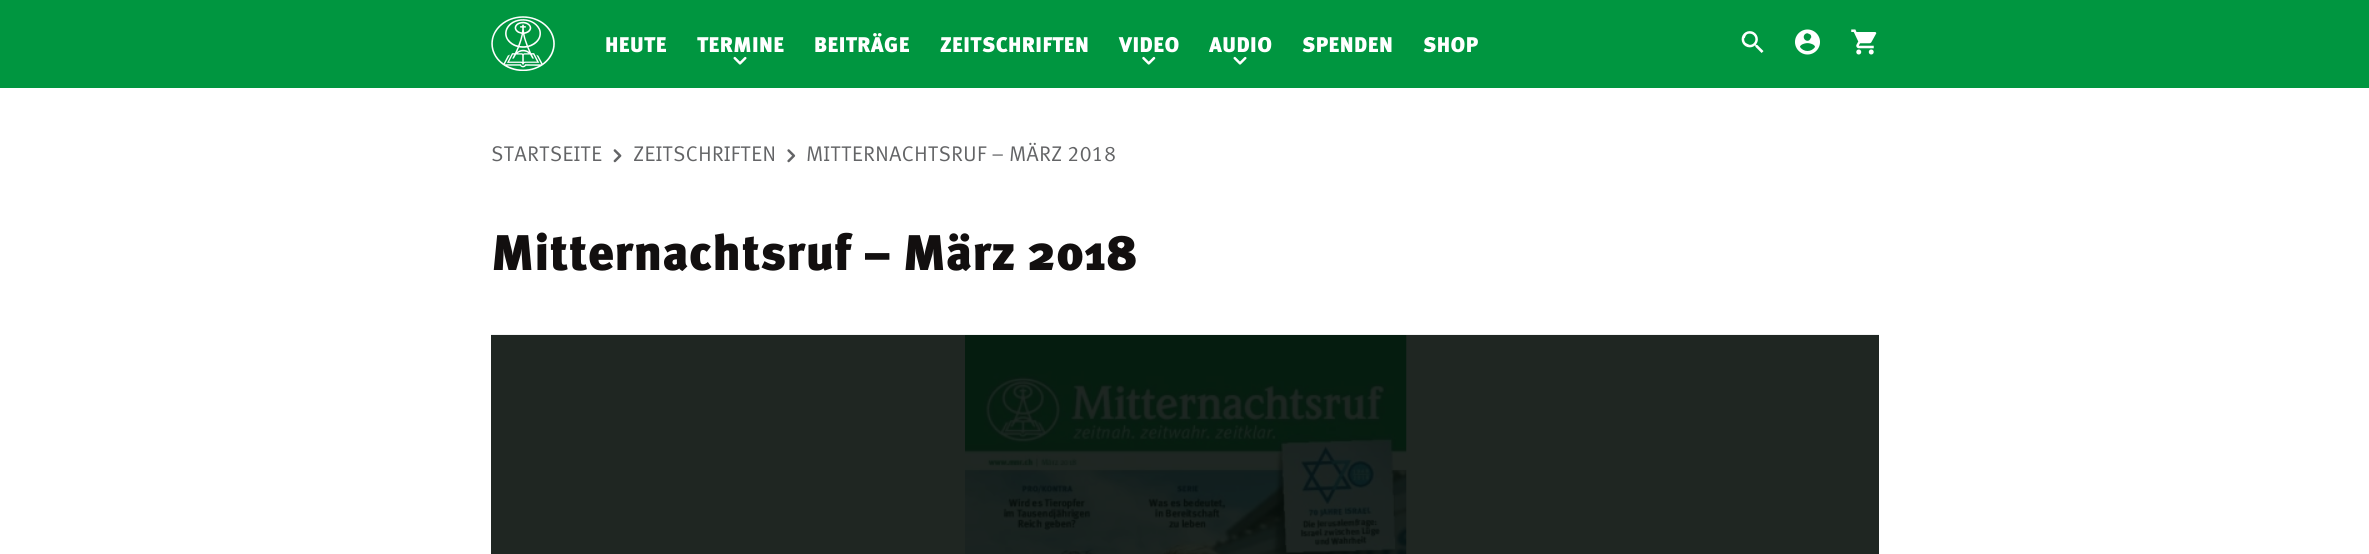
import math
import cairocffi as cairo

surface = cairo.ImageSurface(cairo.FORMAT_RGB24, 2369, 554)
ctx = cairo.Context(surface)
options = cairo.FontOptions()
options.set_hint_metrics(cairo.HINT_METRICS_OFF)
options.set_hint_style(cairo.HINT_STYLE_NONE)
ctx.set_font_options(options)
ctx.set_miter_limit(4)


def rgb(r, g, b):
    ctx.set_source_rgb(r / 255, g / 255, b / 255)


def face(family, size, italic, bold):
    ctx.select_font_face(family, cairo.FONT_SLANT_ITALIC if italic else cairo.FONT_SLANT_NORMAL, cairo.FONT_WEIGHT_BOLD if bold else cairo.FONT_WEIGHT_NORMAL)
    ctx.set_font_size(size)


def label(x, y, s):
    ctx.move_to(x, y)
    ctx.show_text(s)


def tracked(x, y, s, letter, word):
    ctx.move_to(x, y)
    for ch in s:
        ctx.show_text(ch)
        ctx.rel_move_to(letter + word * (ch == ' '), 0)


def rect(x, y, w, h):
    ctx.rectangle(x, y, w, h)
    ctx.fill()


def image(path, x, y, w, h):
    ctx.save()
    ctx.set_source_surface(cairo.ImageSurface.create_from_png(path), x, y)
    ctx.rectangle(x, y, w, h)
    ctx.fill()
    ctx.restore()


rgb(255, 255, 255)
ctx.paint()
rgb(31, 38, 34)
rect(491, 335, 1388, 219)
rgb(0, 150, 64)
rect(0, 0, 2369, 88)
image('image0.png', 491, 16, 64, 55)
face('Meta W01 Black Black', 21.25, 0, 0)
rgb(255, 255, 255)
tracked(605, 52, 'HEUTE', 0.4, 0)
tracked(697, 52, 'TERMINE', 0.4, 0)
image('image1.png', 733, 56, 14, 9)
tracked(814, 52, 'BEITRÄGE', 0.4, 0)
tracked(940, 52, 'ZEITSCHRIFTEN', 0.4, 0)
tracked(1119, 52, 'VIDEO', 0.4, 0)
image('image2.png', 1142, 56, 14, 9)
tracked(1209, 52, 'AUDIO', 0.4, 0)
image('image1.png', 1233, 56, 14, 9)
tracked(1302, 52, 'SPENDEN', 0.4, 0)
tracked(1423, 52, 'SHOP', 0.4, 0)
image('image3.png', 1741, 31, 23, 22)
image('image4.png', 1795, 29, 25, 26)
image('image5.png', 1851, 29, 26, 26)
face('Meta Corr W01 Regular', 21.25, 0, 0)
rgb(99, 100, 102)
label(491, 161, 'STARTSEITE')
image('image6.png', 613, 149, 9, 14)
label(633, 161, 'ZEITSCHRIFTEN')
image('image7.png', 787, 149, 9, 14)
label(806, 161, 'MITTERNACHTSRUF – MÄRZ 2018')
face('Meta W01 Black Black', 50, 0, 0)
rgb(18, 15, 15)
label(491, 270, 'Mitternachtsruf – März 2018')
rgb(241, 242, 242)
rect(491, 334, 1388, 1)
image('image8.png', 965, 335, 442, 219)
surface.write_to_png('render.png')
